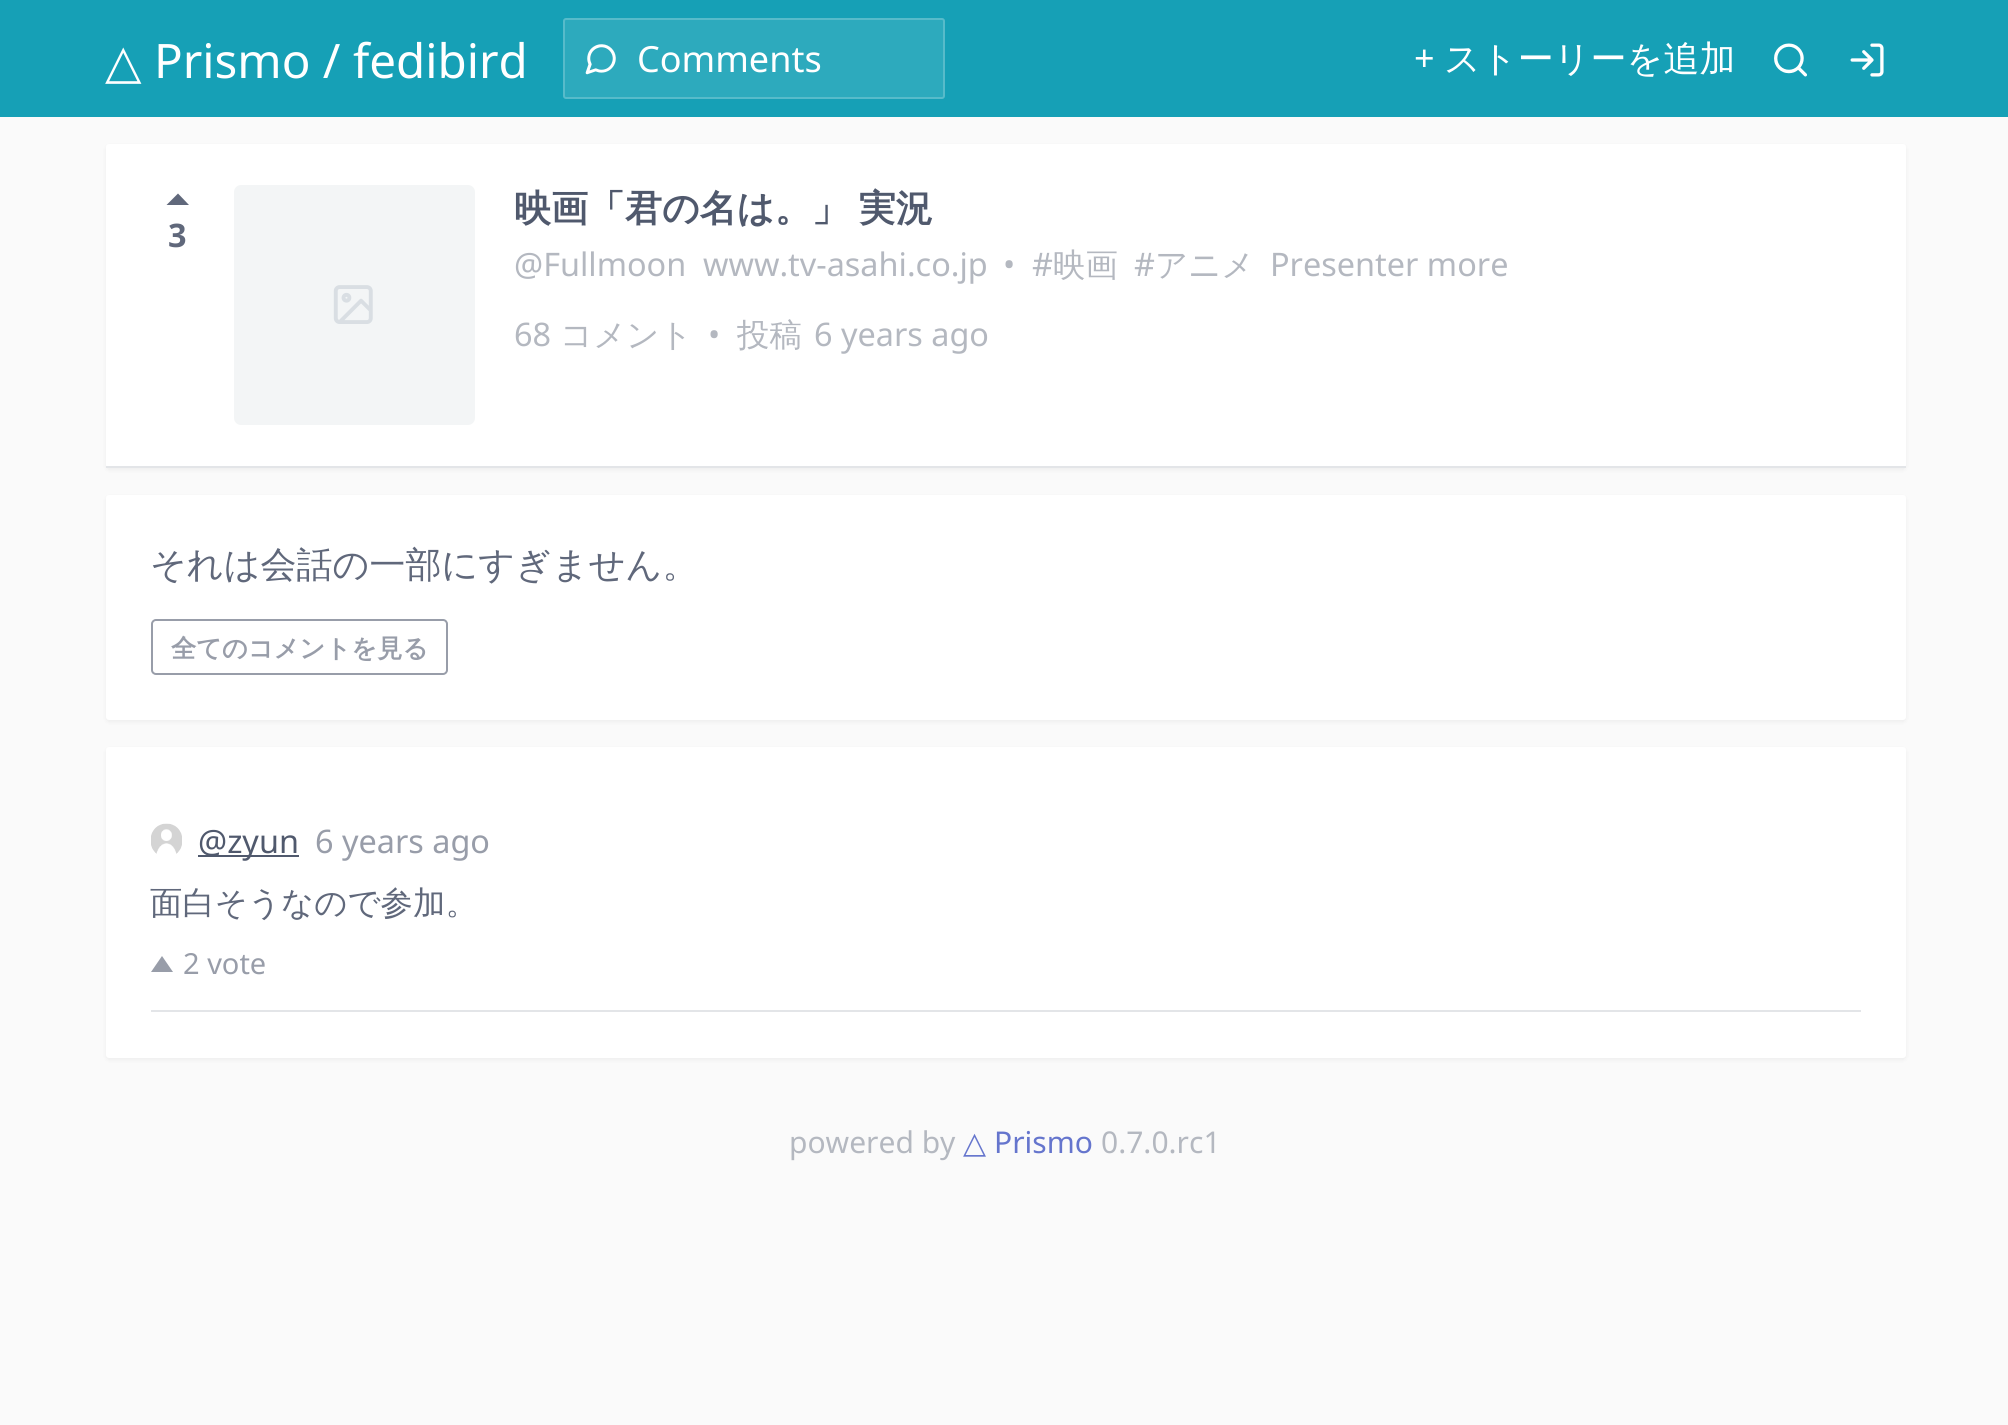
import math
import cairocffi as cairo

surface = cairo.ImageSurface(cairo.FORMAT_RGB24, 2008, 1425)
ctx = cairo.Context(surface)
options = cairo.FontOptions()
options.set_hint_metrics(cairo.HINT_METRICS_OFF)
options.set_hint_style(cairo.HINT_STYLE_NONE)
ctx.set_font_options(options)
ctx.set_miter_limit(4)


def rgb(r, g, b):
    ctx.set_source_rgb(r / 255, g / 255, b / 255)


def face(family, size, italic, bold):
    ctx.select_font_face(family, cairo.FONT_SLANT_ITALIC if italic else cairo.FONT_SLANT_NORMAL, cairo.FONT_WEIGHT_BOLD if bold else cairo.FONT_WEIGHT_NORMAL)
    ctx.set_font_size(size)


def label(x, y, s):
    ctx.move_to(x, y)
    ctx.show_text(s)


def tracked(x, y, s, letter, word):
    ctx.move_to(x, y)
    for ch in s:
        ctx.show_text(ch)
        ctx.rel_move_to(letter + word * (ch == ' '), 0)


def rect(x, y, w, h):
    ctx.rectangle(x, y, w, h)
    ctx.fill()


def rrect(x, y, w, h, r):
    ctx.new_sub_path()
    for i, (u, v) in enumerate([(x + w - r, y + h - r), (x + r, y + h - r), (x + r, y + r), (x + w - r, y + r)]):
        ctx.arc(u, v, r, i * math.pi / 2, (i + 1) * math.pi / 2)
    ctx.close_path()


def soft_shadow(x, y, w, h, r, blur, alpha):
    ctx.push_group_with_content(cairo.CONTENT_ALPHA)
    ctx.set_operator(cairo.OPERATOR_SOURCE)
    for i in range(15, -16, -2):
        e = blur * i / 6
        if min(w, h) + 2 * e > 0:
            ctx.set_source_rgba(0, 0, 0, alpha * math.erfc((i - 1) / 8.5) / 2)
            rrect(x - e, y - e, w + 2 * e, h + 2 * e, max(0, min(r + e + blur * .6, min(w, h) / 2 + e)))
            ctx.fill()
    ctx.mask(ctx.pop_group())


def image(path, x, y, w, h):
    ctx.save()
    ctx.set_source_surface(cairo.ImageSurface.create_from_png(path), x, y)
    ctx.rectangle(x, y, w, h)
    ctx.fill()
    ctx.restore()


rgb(250, 250, 250)
ctx.paint()
rgb(22, 160, 182)
rect(0, 0, 2008, 117)
face('DejaVu Sans', 47.5, 0, 0)
rgb(255, 255, 255)
label(105, 78, '△')
face('Noto Sans', 47.5, 0, 0)
label(154, 78, 'Prismo / fedibird')
rgb(45, 170, 189)
rrect(563, 18, 382, 81, 3)
ctx.fill()
rrect(564, 19, 380, 79, 2)
ctx.set_source_rgba(1, 1, 1, 0.2)
ctx.stroke()
image('image0.png', 585, 44, 31, 31)
face('Noto Sans', 36, 0, 0)
rgb(255, 255, 255)
label(637, 72, 'Comments')
label(1414, 71, '+')
face('WenQuanYi Zen Hei Medium', 36, 0, 0)
label(1444, 71, 'ストーリーを追加')
image('image1.png', 1774, 43, 33, 34)
image('image2.png', 1850, 43, 34, 34)
rgb(0, 0, 0)
soft_shadow(106, 146, 1800, 324, 3, 2, 0.05)
rgb(255, 255, 255)
rrect(106, 144, 1800, 324, 3)
ctx.fill()
rgb(227, 229, 232)
rect(106, 466, 1800, 2)
rgb(96, 104, 123)
ctx.new_path()
ctx.move_to(189, 205)
ctx.line_to(166.5, 205)
ctx.line_to(178, 193.5)
ctx.close_path()
ctx.fill()
face('Noto Sans', 32.4, 0, 1)
label(168, 247, '3')
rgb(243, 245, 246)
rrect(234, 185, 241, 240, 7)
ctx.fill()
image('image3.png', 333, 285, 40, 39)
face('WenQuanYi Zen Hei', 37, 0, 1)
rgb(80, 89, 109)
tracked(514, 221, '映画「君の名は。」 実況', 0, -1)
face('Noto Sans', 32.4, 0, 0)
rgb(180, 184, 192)
label(514, 276, '@Fullmoon')
label(703, 276, 'www.tv-asahi.co.jp')
label(1003, 276, '•')
label(1032, 276, '#')
face('WenQuanYi Zen Hei Medium', 32.4, 0, 0)
label(1053, 276, '映画')
face('Noto Sans', 32.4, 0, 0)
label(1134, 276, '#')
face('WenQuanYi Zen Hei Medium', 32.4, 0, 0)
label(1155, 276, 'アニメ')
face('Noto Sans', 32.4, 0, 0)
label(1270, 276, 'Presenter more')
label(514, 346, '68')
face('WenQuanYi Zen Hei Medium', 32.4, 0, 0)
label(560, 346, 'コメント')
face('Noto Sans', 32.4, 0, 0)
label(708, 346, '•')
face('WenQuanYi Zen Hei Medium', 32.4, 0, 0)
label(737, 346, '投稿')
face('Noto Sans', 32.4, 0, 0)
label(814, 346, '6 years ago')
rgb(0, 0, 0)
soft_shadow(106, 497, 1800, 225, 3, 2, 0.05)
rgb(255, 255, 255)
rrect(106, 495, 1800, 225, 3)
ctx.fill()
face('WenQuanYi Zen Hei Medium', 36, 0, 0)
rgb(96, 104, 123)
label(150, 577, 'それは会話の一部にすぎません。')
rrect(152, 620, 295, 54, 4)
rgb(152, 157, 169)
ctx.stroke()
face('WenQuanYi Zen Hei', 25.25, 0, 1)
label(171, 657, '全てのコメントを見る')
rgb(0, 0, 0)
soft_shadow(106, 749, 1800, 311, 3, 2, 0.05)
rgb(255, 255, 255)
rrect(106, 747, 1800, 311, 3)
ctx.fill()
rgb(227, 229, 232)
rect(151, 1010, 1710, 2)
image('image4.png', 151, 823, 31, 31)
rgb(80, 89, 109)
rect(198, 855, 101, 2)
face('Noto Sans', 32.4, 0, 0)
label(198, 853, '@zyun')
rgb(152, 157, 169)
label(315, 853, '6 years ago')
face('WenQuanYi Zen Hei Medium', 32.4, 0, 0)
rgb(96, 104, 123)
label(150, 914, '面白そうなので参加。')
rgb(152, 157, 169)
ctx.new_path()
ctx.move_to(173, 972)
ctx.line_to(151, 972)
ctx.line_to(162, 956)
ctx.close_path()
ctx.fill()
face('Noto Sans', 29, 0, 0)
label(183, 974, '2 vote')
face('Noto Sans', 30, 0, 0)
rgb(180, 184, 192)
label(789, 1153, 'powered by')
face('DejaVu Sans', 30, 0, 0)
rgb(101, 117, 205)
label(963, 1153, '△')
face('Noto Sans', 30, 0, 0)
label(994, 1153, 'Prismo')
rgb(180, 184, 192)
label(1101, 1153, '0.7.0.rc1')
surface.write_to_png('render.png')
